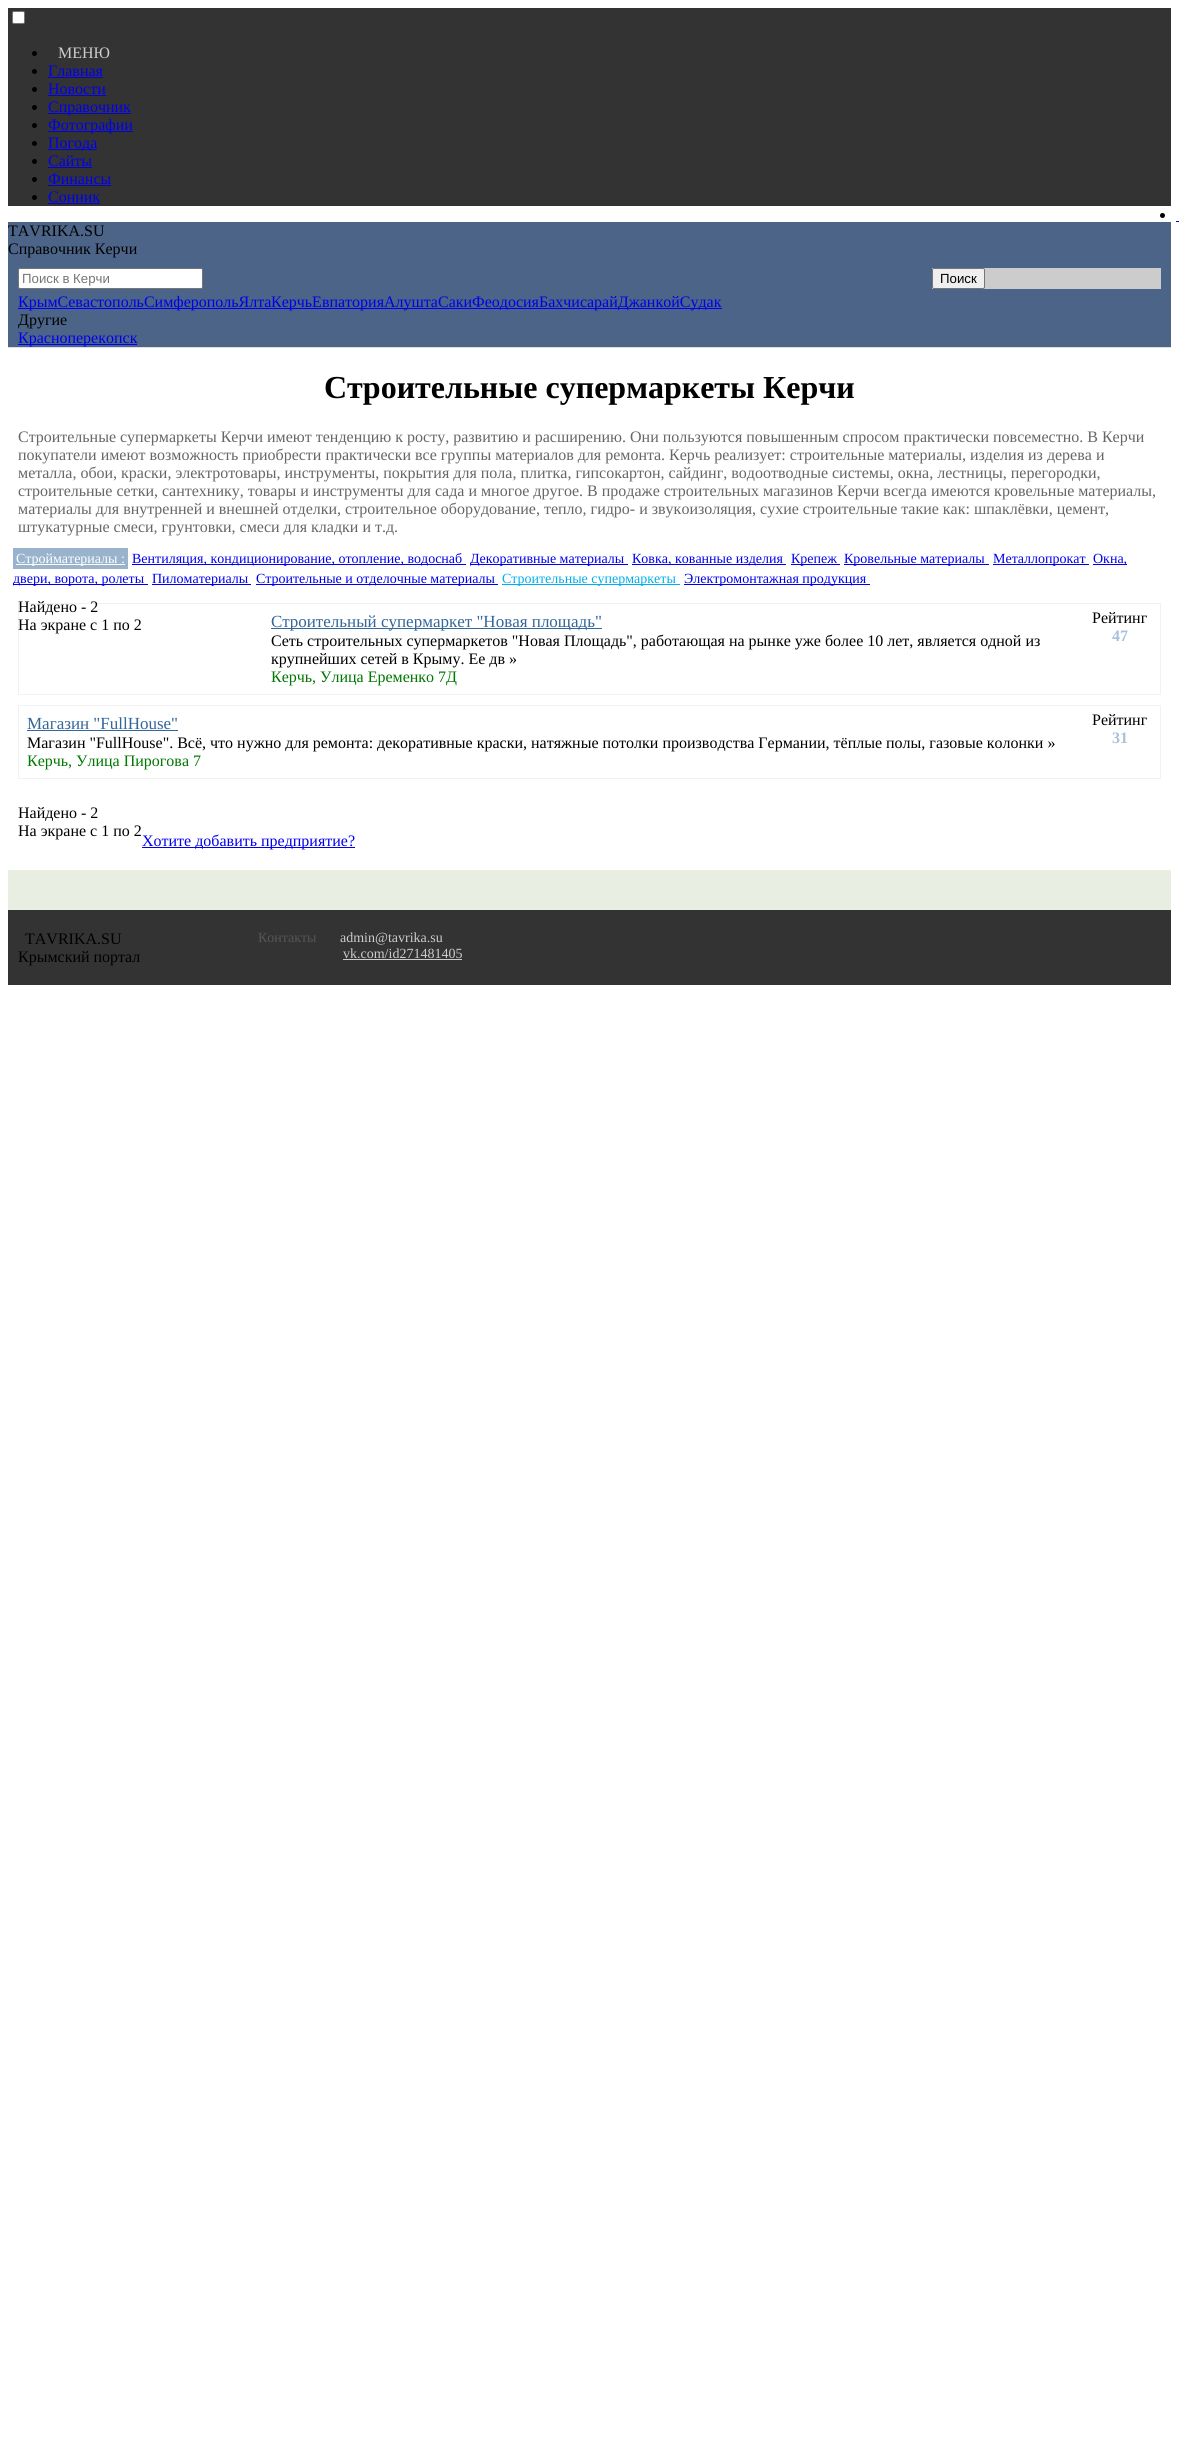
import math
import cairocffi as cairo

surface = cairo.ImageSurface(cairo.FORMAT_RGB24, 1179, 2438)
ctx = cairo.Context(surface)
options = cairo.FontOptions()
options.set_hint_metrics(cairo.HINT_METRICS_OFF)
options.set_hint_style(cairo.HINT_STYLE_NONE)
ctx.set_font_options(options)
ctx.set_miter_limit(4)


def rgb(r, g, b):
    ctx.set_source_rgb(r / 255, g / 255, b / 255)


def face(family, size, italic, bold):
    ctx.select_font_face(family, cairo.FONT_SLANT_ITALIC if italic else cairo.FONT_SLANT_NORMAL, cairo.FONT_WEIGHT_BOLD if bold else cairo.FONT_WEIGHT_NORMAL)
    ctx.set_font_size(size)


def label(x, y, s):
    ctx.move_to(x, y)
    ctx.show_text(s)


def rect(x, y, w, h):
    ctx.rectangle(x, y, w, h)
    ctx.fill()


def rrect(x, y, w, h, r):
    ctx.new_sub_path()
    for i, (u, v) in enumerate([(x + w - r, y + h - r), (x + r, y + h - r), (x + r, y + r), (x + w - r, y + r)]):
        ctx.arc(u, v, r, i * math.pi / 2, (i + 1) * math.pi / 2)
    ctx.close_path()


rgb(255, 255, 255)
ctx.paint()
rgb(51, 51, 51)
rect(8, 8, 1163, 198)
rgb(255, 255, 255)
rrect(12.5, 11.5, 12, 12, 1.5)
ctx.fill_preserve()
rgb(118, 118, 118)
ctx.set_line_width(1)
ctx.stroke()
rgb(0, 0, 0)
ctx.arc(34.5, 53.5, 2.5, 0, 2 * math.pi)
ctx.fill()
face('Liberation Serif', 16, 0, 0)
rgb(204, 204, 204)
label(58, 58, 'МЕНЮ')
rgb(0, 0, 0)
ctx.new_path()
ctx.arc(34.5, 71.5, 2.5, 0, 2 * math.pi)
ctx.fill()
rgb(0, 0, 238)
label(48, 76, 'Главная')
rect(48, 77, 55, 1)
rgb(0, 0, 0)
ctx.new_path()
ctx.arc(34.5, 89.5, 2.5, 0, 2 * math.pi)
ctx.fill()
rgb(0, 0, 238)
label(48, 94, 'Новости')
rect(48, 95, 58, 1)
rgb(0, 0, 0)
ctx.new_path()
ctx.arc(34.5, 107.5, 2.5, 0, 2 * math.pi)
ctx.fill()
rgb(0, 0, 238)
rect(48, 113, 83, 1)
label(48, 112, 'Справочник')
rgb(0, 0, 0)
ctx.new_path()
ctx.arc(34.5, 125.5, 2.5, 0, 2 * math.pi)
ctx.fill()
rgb(0, 0, 238)
rect(48, 131, 85, 1)
label(48, 130, 'Фотографии')
rgb(0, 0, 0)
ctx.new_path()
ctx.arc(34.5, 143.5, 2.5, 0, 2 * math.pi)
ctx.fill()
rgb(0, 0, 238)
rect(48, 149, 49, 1)
label(48, 148, 'Погода')
rgb(0, 0, 0)
ctx.new_path()
ctx.arc(34.5, 161.5, 2.5, 0, 2 * math.pi)
ctx.fill()
rgb(0, 0, 238)
label(48, 166, 'Сайты')
rect(48, 167, 44, 1)
rgb(0, 0, 0)
ctx.new_path()
ctx.arc(34.5, 179.5, 2.5, 0, 2 * math.pi)
ctx.fill()
rgb(0, 0, 238)
label(48, 184, 'Финансы')
rect(48, 185, 63, 1)
rgb(0, 0, 0)
ctx.new_path()
ctx.arc(34.5, 197.5, 2.5, 0, 2 * math.pi)
ctx.fill()
rgb(0, 0, 238)
label(48, 202, 'Сонник')
rect(48, 203, 52, 1)
rgb(0, 0, 0)
ctx.new_path()
ctx.arc(1162.5, 215.5, 2.5, 0, 2 * math.pi)
ctx.fill()
rgb(0, 0, 238)
rect(1176, 221, 3, 1)
rgb(75, 100, 135)
rect(8, 222, 1163, 125)
rgb(222, 222, 222)
rect(8, 347, 1163, 1)
rgb(0, 0, 0)
label(8, 236, 'TAVRIKA.SU')
label(8, 254, 'Справочник Керчи')
rgb(255, 255, 255)
rrect(18.5, 268.5, 184, 20, 1.5)
ctx.fill_preserve()
rgb(118, 118, 118)
ctx.stroke()
face('Liberation Sans', 13.25, 0, 0)
rgb(117, 117, 117)
label(22, 283, 'Поиск в Керчи')
rgb(204, 204, 204)
rect(932, 268, 229, 21)
rgb(239, 239, 239)
rrect(932.5, 268.5, 52, 20, 1.5)
ctx.fill_preserve()
rgb(118, 118, 118)
ctx.stroke()
rgb(0, 0, 0)
label(940, 283, 'Поиск')
rgb(0, 0, 238)
rect(18, 308, 253, 1)
face('Liberation Serif', 16, 0, 0)
label(18, 307, 'КрымСевастопольСимферопольЯлта')
rect(271, 308, 113, 1)
label(271, 307, 'КерчьЕвпатория')
rect(384, 308, 54, 1)
label(384, 307, 'АлуштаСаки')
rect(438, 308, 101, 1)
label(472, 307, 'Феодосия')
rect(539, 308, 183, 1)
label(539, 307, 'БахчисарайДжанкойСудак')
rgb(0, 0, 0)
label(18, 325, 'Другие')
rgb(0, 0, 238)
rect(18, 344, 119, 1)
label(18, 343, 'Красноперекопск')
face('Liberation Serif', 32, 0, 1)
rgb(0, 0, 0)
label(324, 398, 'Строительные супермаркеты Керчи')
face('Liberation Serif', 16, 0, 0)
rgb(102, 102, 102)
label(18, 442, 'Строительные супермаркеты Керчи имеют тенденцию к росту, развитию и расширению. Они пользуются повышенным спросом практически повсеместно. В Керчи')
label(18, 460, 'покупатели имеют возможность приобрести практически все группы материалов для ремонта. Керчь реализует: строительные материалы, изделия из дерева и')
label(18, 478, 'металла, обои, краски, электротовары, инструменты, покрытия для пола, плитка, гипсокартон, сайдинг, водоотводные системы, окна, лестницы, перегородки,')
label(18, 496, 'строительные сетки, сантехнику, товары и инструменты для сада и многое другое. В продаже строительных магазинов Керчи всегда имеются кровельные материалы,')
label(18, 514, 'материалы для внутренней и внешней отделки, строительное оборудование, тепло, гидро- и звукоизоляция, сухие строительные такие как: шпаклёвки, цемент,')
label(18, 532, 'штукатурные смеси, грунтовки, смеси для кладки и т.д.')
rgb(153, 179, 205)
rect(13, 548, 115, 21)
rgb(255, 255, 255)
rect(16, 564, 109, 1)
face('Liberation Serif', 14, 0, 0)
label(16, 563, 'Стройматериалы :')
rgb(0, 0, 238)
rect(132, 564, 334, 1)
label(132, 563, 'Вентиляция, кондиционирование, отопление, водоснаб')
rect(470, 564, 158, 1)
label(470, 563, 'Декоративные материалы')
rect(632, 564, 154, 1)
label(632, 563, 'Ковка, кованные изделия')
rect(791, 564, 49, 1)
label(791, 563, 'Крепеж')
rect(844, 564, 145, 1)
label(844, 563, 'Кровельные материалы')
rect(993, 564, 96, 1)
label(993, 563, 'Металлопрокат')
rect(1093, 564, 34, 1)
label(1093, 563, 'Окна,')
rect(13, 584, 135, 1)
label(13, 583, 'двери, ворота, ролеты')
rect(152, 584, 99, 1)
label(152, 583, 'Пиломатериалы')
rect(256, 584, 242, 1)
label(256, 583, 'Строительные и отделочные материалы')
rgb(0, 174, 238)
rect(502, 584, 178, 1)
label(502, 583, 'Строительные супермаркеты')
rgb(0, 0, 238)
rect(684, 584, 186, 1)
label(684, 583, 'Электромонтажная продукция')
ctx.rectangle(18.5, 603.5, 1142, 91)
rgb(242, 242, 242)
ctx.stroke()
face('Liberation Serif', 16, 0, 0)
rgb(0, 0, 0)
label(18, 612, 'Найдено - 2')
label(18, 630, 'На экране с 1 по 2')
rgb(51, 102, 153)
rect(271, 628, 331, 1)
face('Liberation Serif', 17, 0, 0)
label(271, 627, 'Строительный супермаркет "Новая площадь"')
face('Liberation Serif', 16, 0, 0)
rgb(0, 0, 0)
label(271, 646, 'Сеть строительных супермаркетов "Новая Площадь", работающая на рынке уже более 10 лет, является одной из')
label(271, 664, 'крупнейших сетей в Крыму. Ее дв »')
rgb(0, 119, 0)
label(271, 682, 'Керчь, Улица Еременко 7Д')
rgb(0, 0, 0)
label(1092, 623, 'Рейтинг')
face('Liberation Serif', 16, 0, 1)
rgb(168, 193, 217)
label(1112, 641, '47')
ctx.rectangle(18.5, 705.5, 1142, 73)
rgb(242, 242, 242)
ctx.stroke()
face('Liberation Serif', 17, 0, 0)
rgb(51, 102, 153)
label(27, 729, 'Магазин "FullHouse"')
rect(27, 730, 151, 1)
face('Liberation Serif', 16, 0, 0)
rgb(0, 0, 0)
label(27, 748, 'Магазин "FullHouse". Всё, что нужно для ремонта: декоративные краски, натяжные потолки производства Германии, тёплые полы, газовые колонки »')
rgb(0, 119, 0)
label(27, 766, 'Керчь, Улица Пирогова 7')
rgb(0, 0, 0)
label(1092, 725, 'Рейтинг')
face('Liberation Serif', 16, 0, 1)
rgb(168, 193, 217)
label(1112, 743, '31')
face('Liberation Serif', 16, 0, 0)
rgb(0, 0, 0)
label(18, 818, 'Найдено - 2')
label(18, 836, 'На экране с 1 по 2')
rgb(0, 0, 238)
rect(142, 847, 213, 1)
label(142, 846, 'Хотите добавить предприятие?')
rgb(232, 239, 226)
rect(8, 870, 1163, 40)
rgb(51, 51, 51)
rect(8, 910, 1163, 75)
rgb(0, 0, 0)
label(25, 944, 'TAVRIKA.SU')
label(18, 962, 'Крымский портал')
face('Liberation Serif', 14, 0, 0)
rgb(85, 85, 85)
label(258, 942, 'Контакты')
rgb(204, 204, 204)
label(340, 942, 'admin@tavrika.su')
label(343, 958, 'vk.com/id271481405')
rect(343, 959, 119, 1)
surface.write_to_png('render.png')
